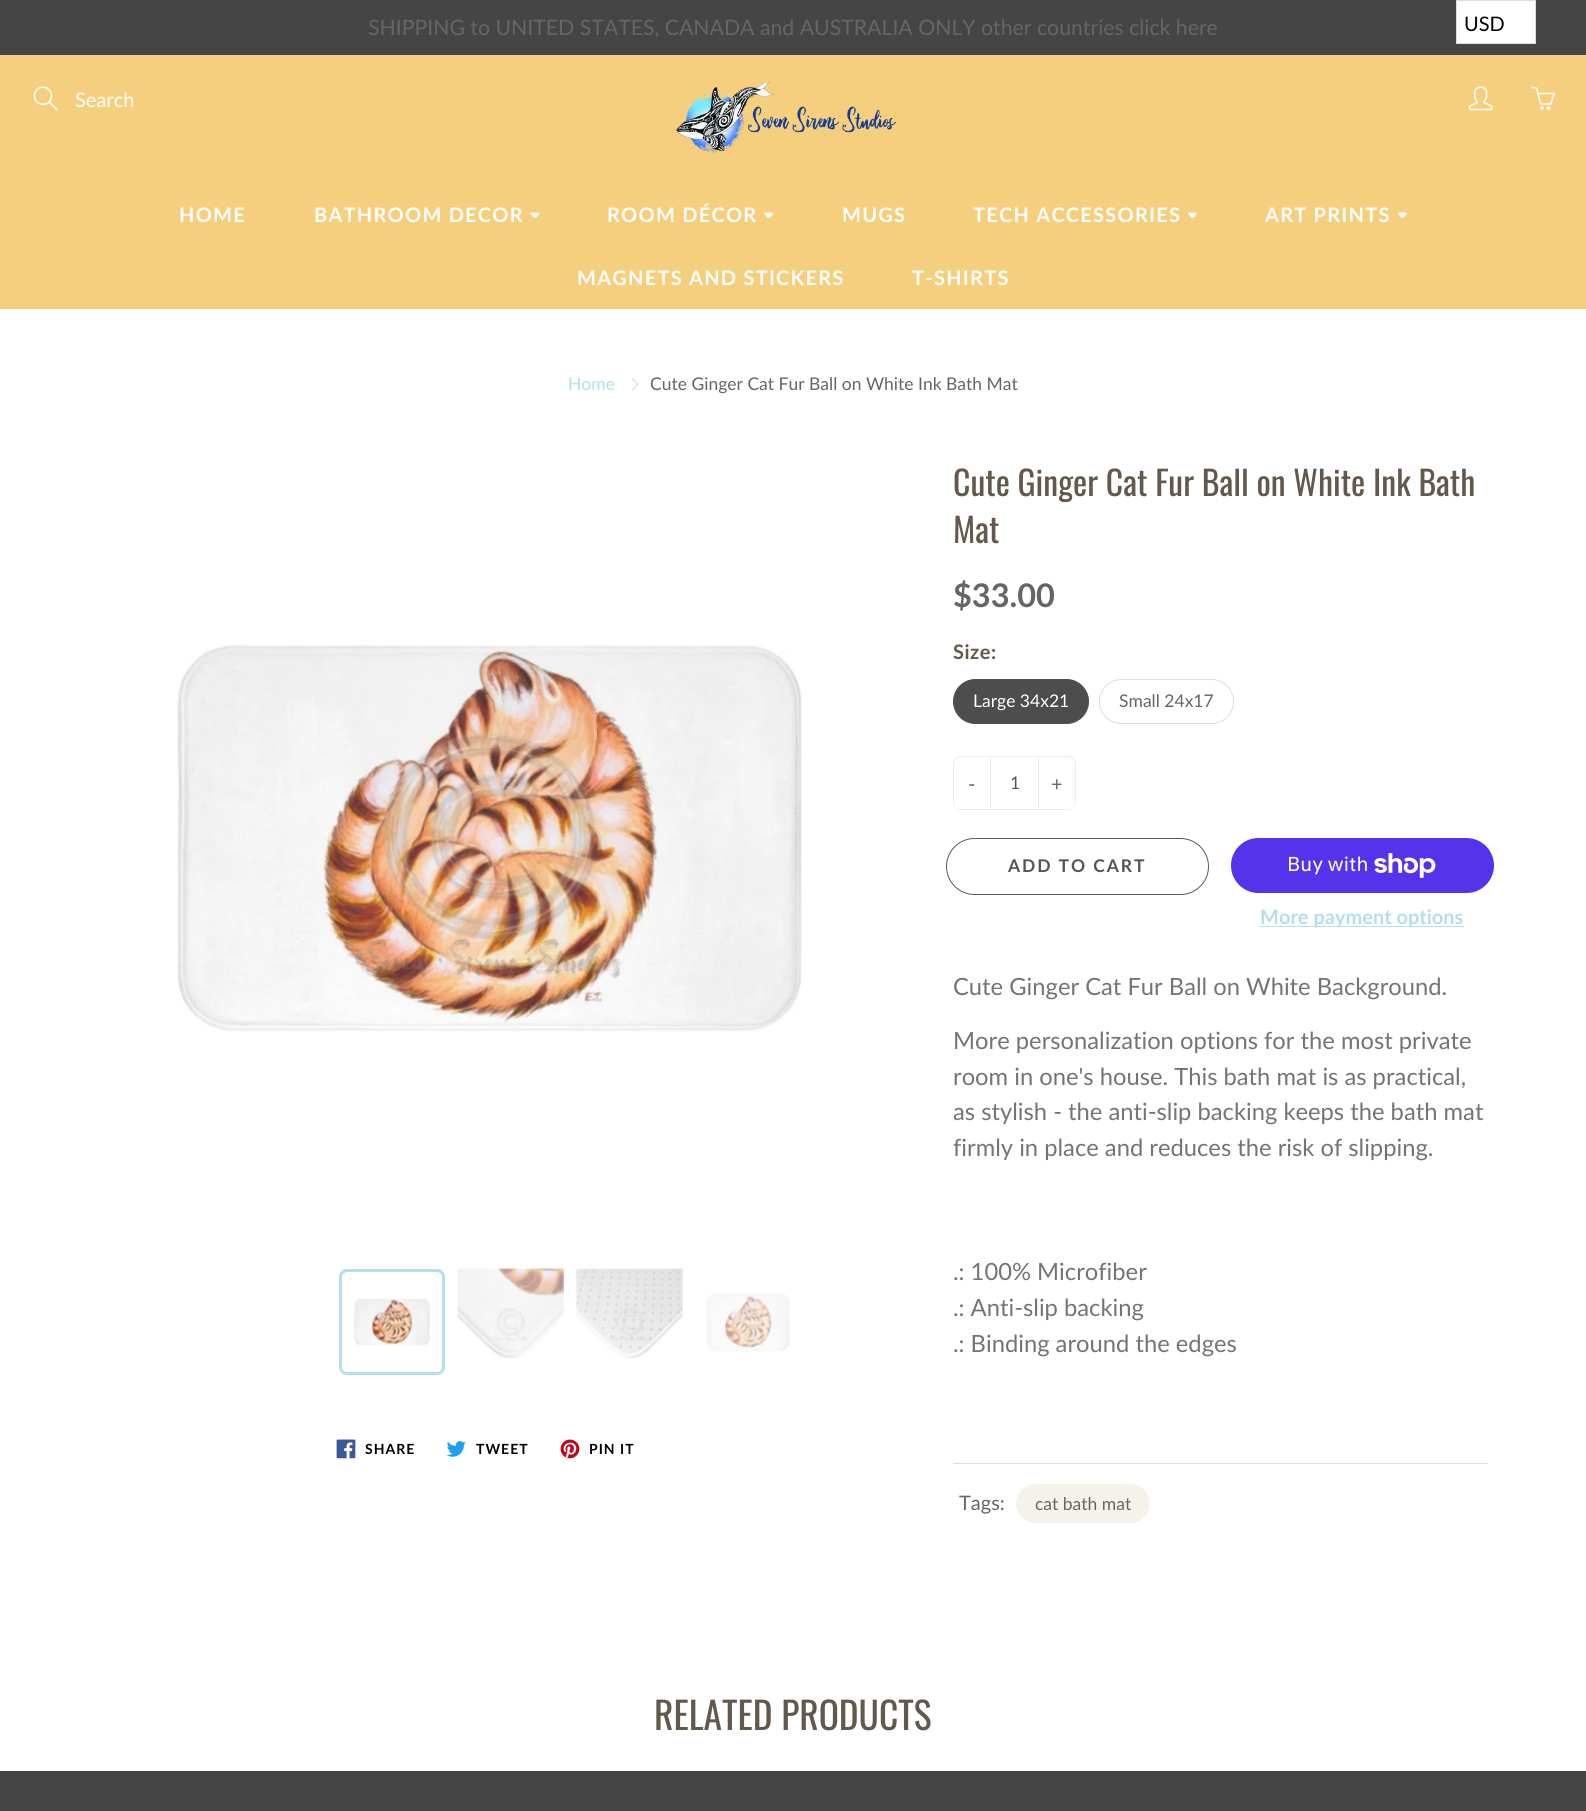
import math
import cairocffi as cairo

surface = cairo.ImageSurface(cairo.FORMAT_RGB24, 1586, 1811)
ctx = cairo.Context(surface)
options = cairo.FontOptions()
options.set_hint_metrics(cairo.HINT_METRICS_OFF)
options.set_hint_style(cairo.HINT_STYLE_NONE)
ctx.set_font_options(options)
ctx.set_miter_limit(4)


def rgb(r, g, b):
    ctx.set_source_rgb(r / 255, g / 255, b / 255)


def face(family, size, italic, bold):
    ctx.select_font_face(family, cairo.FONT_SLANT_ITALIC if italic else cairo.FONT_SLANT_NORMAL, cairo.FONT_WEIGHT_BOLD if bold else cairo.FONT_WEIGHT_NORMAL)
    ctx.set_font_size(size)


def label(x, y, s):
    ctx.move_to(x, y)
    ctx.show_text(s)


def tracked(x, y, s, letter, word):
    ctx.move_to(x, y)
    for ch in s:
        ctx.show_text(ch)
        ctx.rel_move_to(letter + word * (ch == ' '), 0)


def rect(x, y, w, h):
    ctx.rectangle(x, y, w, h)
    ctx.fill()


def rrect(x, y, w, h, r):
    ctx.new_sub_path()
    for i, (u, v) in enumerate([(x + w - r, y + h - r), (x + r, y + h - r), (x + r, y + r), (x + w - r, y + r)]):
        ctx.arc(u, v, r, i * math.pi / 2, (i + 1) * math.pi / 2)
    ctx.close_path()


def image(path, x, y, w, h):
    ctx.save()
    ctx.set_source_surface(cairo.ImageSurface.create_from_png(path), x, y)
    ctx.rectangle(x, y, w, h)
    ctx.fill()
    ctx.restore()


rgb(255, 255, 255)
ctx.paint()
rgb(69, 69, 69)
rect(0, 0, 1586, 55)
face('Lato', 21.25, 0, 0)
rgb(102, 101, 101)
label(368, 35, 'SHIPPING to UNITED STATES, CANADA and AUSTRALIA ONLY other countries click here')
rgb(245, 207, 126)
rect(0, 55, 1586, 254)
image('image0.png', 33, 86, 25, 25)
face('Lato', 20, 0, 0)
rgb(255, 255, 255)
label(75, 107, 'Search')
image('image1.png', 676, 82, 220, 71)
image('image2.png', 1468, 86, 25, 25)
image('image3.png', 1531, 86, 24, 24)
face('Lato', 20, 0, 1)
tracked(179, 222, 'HOME', 1.25, 0)
tracked(314, 222, 'BATHROOM DECOR', 1.25, 0)
ctx.new_path()
ctx.move_to(531, 212.5)
ctx.line_to(530, 213)
ctx.line_to(533.5, 217.5)
ctx.line_to(536.5, 217.5)
ctx.line_to(539.5, 213)
ctx.line_to(537.5, 212.5)
ctx.close_path()
ctx.fill()
tracked(607, 222, 'ROOM DÉCOR', 1.25, 0)
ctx.new_path()
ctx.move_to(765, 212.5)
ctx.line_to(764, 213)
ctx.line_to(767, 217.5)
ctx.line_to(770.5, 217.5)
ctx.line_to(773.5, 213)
ctx.line_to(771, 212.5)
ctx.close_path()
ctx.fill()
tracked(842, 222, 'MUGS', 1.25, 0)
tracked(973, 222, 'TECH ACCESSORIES', 1.25, 0)
ctx.new_path()
ctx.move_to(1189, 212.5)
ctx.line_to(1188, 213)
ctx.line_to(1191, 217.5)
ctx.line_to(1194, 217.5)
ctx.line_to(1197, 213)
ctx.line_to(1195, 212.5)
ctx.close_path()
ctx.fill()
tracked(1265, 222, 'ART PRINTS', 1.25, 0)
ctx.new_path()
ctx.move_to(1399, 212.5)
ctx.line_to(1398, 213)
ctx.line_to(1401, 217.5)
ctx.line_to(1404, 217.5)
ctx.line_to(1407, 213)
ctx.line_to(1405, 212.5)
ctx.close_path()
ctx.fill()
tracked(577, 285, 'MAGNETS AND STICKERS', 1.25, 0)
tracked(912, 285, 'T-SHIRTS', 1.25, 0)
face('Lato', 17.5, 0, 0)
rgb(178, 223, 235)
label(568, 390, 'Home')
image('image4.png', 631, 378, 8, 13)
rgb(102, 101, 101)
label(650, 390, 'Cute Ginger Cat Fur Ball on White Ink Bath Mat')
image('image5.png', 177, 644, 625, 388)
rrect(340.5, 1270.5, 103, 103, 6.5)
rgb(178, 223, 235)
ctx.set_line_width(3)
ctx.stroke()
image('image6.png', 354, 1298, 76, 49)
image('image7.png', 457, 1268, 107, 91)
image('image8.png', 575, 1268, 108, 91)
image('image9.png', 706, 1293, 84, 60)
image('image10.png', 336, 1439, 20, 20)
face('Lato', 14, 0, 1)
rgb(0, 0, 0)
tracked(365, 1454, 'SHARE', 1, 0)
image('image11.png', 446, 1441, 20, 16)
tracked(476, 1454, 'TWEET', 1, 0)
image('image12.png', 560, 1439, 20, 20)
tracked(589, 1454, 'PIN IT', 1, 0)
face('Oswald', 33.75, 0, 0)
rgb(99, 88, 76)
label(953, 496, 'Cute Ginger Cat Fur Ball on White Ink Bath')
label(953, 543, 'Mat')
face('Lato', 32.5, 0, 1)
rgb(102, 101, 101)
label(953, 607, '$33.00')
face('Lato', 20, 0, 1)
rgb(99, 88, 76)
tracked(953, 659, 'Size:', 0.5, 0)
rgb(77, 77, 77)
rrect(953.5, 679.5, 135, 44, 22)
ctx.fill_preserve()
ctx.set_line_width(1)
ctx.stroke()
face('Lato', 17.5, 0, 0)
rgb(255, 255, 255)
label(973, 707, 'Large 34x21')
rrect(1099.5, 679.5, 134, 44, 22)
rgb(221, 221, 221)
ctx.stroke()
rgb(102, 101, 101)
label(1119, 707, 'Small 24x17')
rrect(953.5, 756.5, 122, 53, 7.5)
rgb(237, 237, 237)
ctx.stroke()
rgb(255, 255, 255)
ctx.new_path()
ctx.move_to(960, 758)
ctx.line_to(990, 758)
ctx.line_to(990, 809)
ctx.line_to(960, 809)
ctx.curve_to(956.5, 809, 954, 806.5, 954, 803)
ctx.line_to(954, 764)
ctx.curve_to(954, 760.5, 956.5, 758, 960, 758)
ctx.close_path()
ctx.fill()
face('Lato', 20, 0, 0)
rgb(102, 101, 101)
label(968, 791, '-')
rgb(237, 237, 237)
rect(1038, 758, 1, 51)
rect(990, 758, 1, 51)
face('Lato', 17.5, 0, 0)
rgb(85, 85, 85)
label(1010, 789, '1')
rgb(255, 255, 255)
ctx.new_path()
ctx.move_to(1039, 758)
ctx.line_to(1069, 758)
ctx.curve_to(1072.5, 758, 1075, 760.5, 1075, 764)
ctx.line_to(1075, 803)
ctx.curve_to(1075, 806.5, 1072.5, 809, 1069, 809)
ctx.line_to(1039, 809)
ctx.close_path()
ctx.fill()
face('Lato', 20, 0, 0)
rgb(102, 101, 101)
label(1051, 791, '+')
rrect(946.5, 838.5, 262, 56, 28)
rgb(89, 89, 89)
ctx.stroke()
face('Lato', 17.5, 0, 1)
rgb(85, 85, 85)
tracked(1008, 872, 'ADD TO CART', 1.9, 0)
rgb(84, 51, 235)
rrect(1231, 838, 263, 55, 27.5)
ctx.fill()
face('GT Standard', 20, 0, 0)
rgb(255, 255, 255)
label(1287, 871, 'Buy with')
image('image13.png', 1374, 853, 62, 25)
rgb(178, 223, 235)
rect(1260, 926, 204, 1)
face('Lato', 20, 0, 1)
label(1260, 924, 'More payment options')
face('Lato', 23.75, 0, 0)
rgb(117, 116, 116)
label(953, 995, 'Cute Ginger Cat Fur Ball on White Background.')
label(953, 1049, 'More personalization options for the most private')
label(953, 1085, 'room in one\'s house. This bath mat is as practical,')
label(953, 1120, 'as stylish - the anti-slip backing keeps the bath mat')
label(953, 1156, 'firmly in place and reduces the risk of slipping.')
label(953, 1280, '.: 100% Microfiber')
label(953, 1316, '.: Anti-slip backing')
label(953, 1352, '.: Binding around the edges')
rgb(221, 221, 221)
rect(953, 1463, 535, 1)
face('Lato', 20, 0, 0)
rgb(102, 101, 101)
label(959, 1510, 'Tags:')
rgb(245, 242, 235)
rrect(1016, 1484, 134, 39, 19.5)
ctx.fill()
face('Lato', 17.5, 0, 0)
rgb(102, 101, 101)
label(1035, 1510, 'cat bath mat')
face('Oswald', 37.5, 0, 0)
rgb(99, 88, 76)
label(654, 1730, 'RELATED PRODUCTS')
rgb(69, 69, 69)
rect(0, 1771, 1586, 40)
rgb(255, 255, 255)
ctx.rectangle(1456.5, 0.5, 79, 43)
ctx.fill_preserve()
rgb(221, 221, 221)
ctx.stroke()
face('Lato', 20, 0, 0)
rgb(0, 0, 0)
label(1464, 31, 'USD')
surface.write_to_png('render.png')
